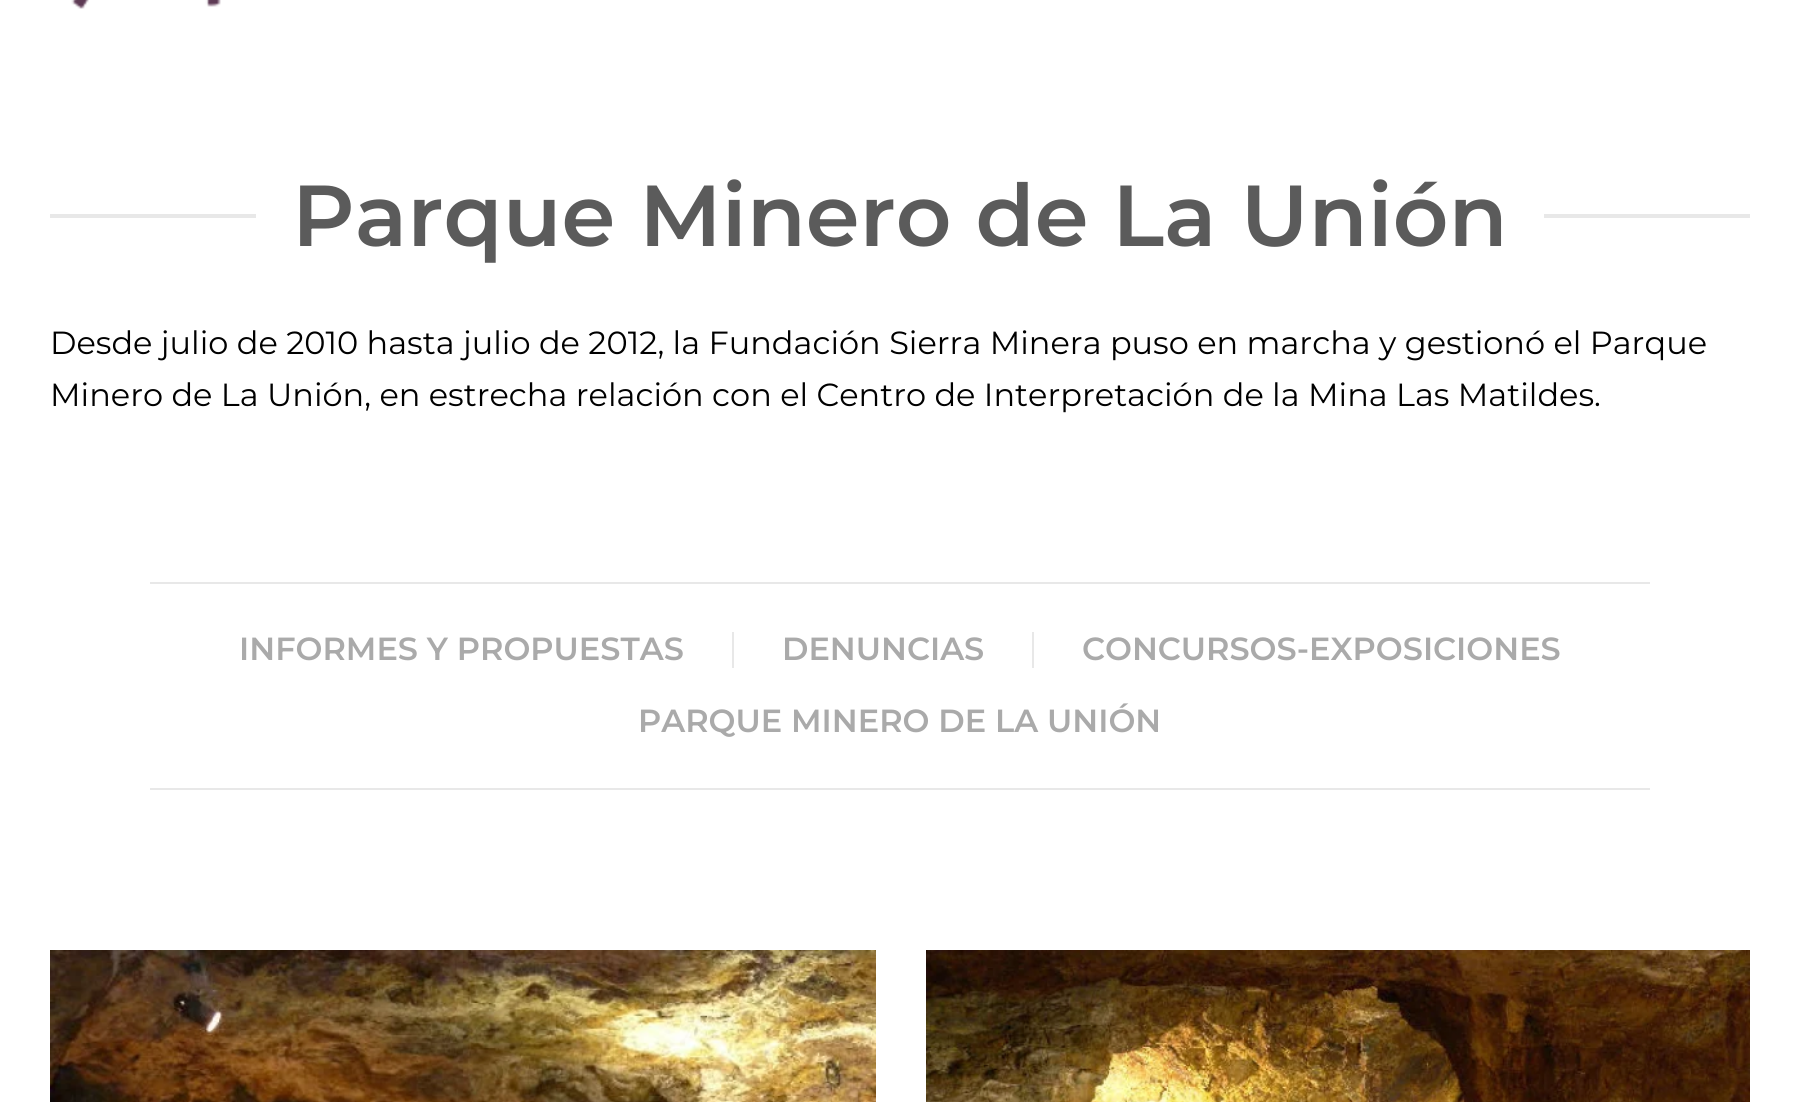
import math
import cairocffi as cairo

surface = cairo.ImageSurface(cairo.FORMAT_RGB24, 1799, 1102)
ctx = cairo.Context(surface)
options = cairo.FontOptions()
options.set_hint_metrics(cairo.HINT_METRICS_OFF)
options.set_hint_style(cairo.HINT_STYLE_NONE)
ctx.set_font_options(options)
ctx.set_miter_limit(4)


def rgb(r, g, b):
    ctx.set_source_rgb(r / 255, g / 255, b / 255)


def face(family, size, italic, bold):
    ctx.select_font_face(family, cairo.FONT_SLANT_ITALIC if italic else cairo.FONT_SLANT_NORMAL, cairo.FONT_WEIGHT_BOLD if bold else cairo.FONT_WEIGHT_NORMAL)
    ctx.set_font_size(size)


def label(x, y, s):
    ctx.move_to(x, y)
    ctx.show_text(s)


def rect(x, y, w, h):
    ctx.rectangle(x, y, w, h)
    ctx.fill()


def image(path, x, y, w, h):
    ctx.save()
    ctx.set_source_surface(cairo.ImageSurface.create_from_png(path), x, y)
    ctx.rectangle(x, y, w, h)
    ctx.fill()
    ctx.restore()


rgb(255, 255, 255)
ctx.paint()
image('image0.png', 71, 0, 150, 9)
rgb(232, 232, 232)
rect(50, 214, 206, 4)
face('Montserrat Thin', 86.4, 0, 0)
rgb(91, 91, 91)
label(292, 246, 'Parque Minero de La Unión')
rgb(232, 232, 232)
rect(1544, 214, 206, 4)
face('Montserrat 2 Thin', 32, 0, 0)
rgb(0, 0, 0)
label(50, 354, 'Desde julio de 2010 hasta julio de 2012, la Fundación Sierra Minera puso en marcha y gestionó el Parque')
label(50, 406, 'Minero de La Unión, en estrecha relación con el Centro de Interpretación de la Mina Las Matildes.')
rgb(232, 232, 232)
rect(150, 582, 1500, 2)
face('Montserrat Thin', 32, 0, 0)
rgb(170, 170, 170)
label(239, 660, 'INFORMES Y PROPUESTAS')
rgb(232, 232, 232)
rect(732, 632, 2, 36)
rgb(170, 170, 170)
label(782, 660, 'DENUNCIAS')
rgb(232, 232, 232)
rect(1032, 632, 2, 36)
rgb(170, 170, 170)
label(1082, 660, 'CONCURSOS-EXPOSICIONES')
label(638, 732, 'PARQUE MINERO DE LA UNIÓN')
rgb(232, 232, 232)
rect(150, 788, 1500, 2)
image('image1.png', 50, 950, 826, 152)
image('image2.png', 926, 950, 824, 152)
surface.write_to_png('render.png')
